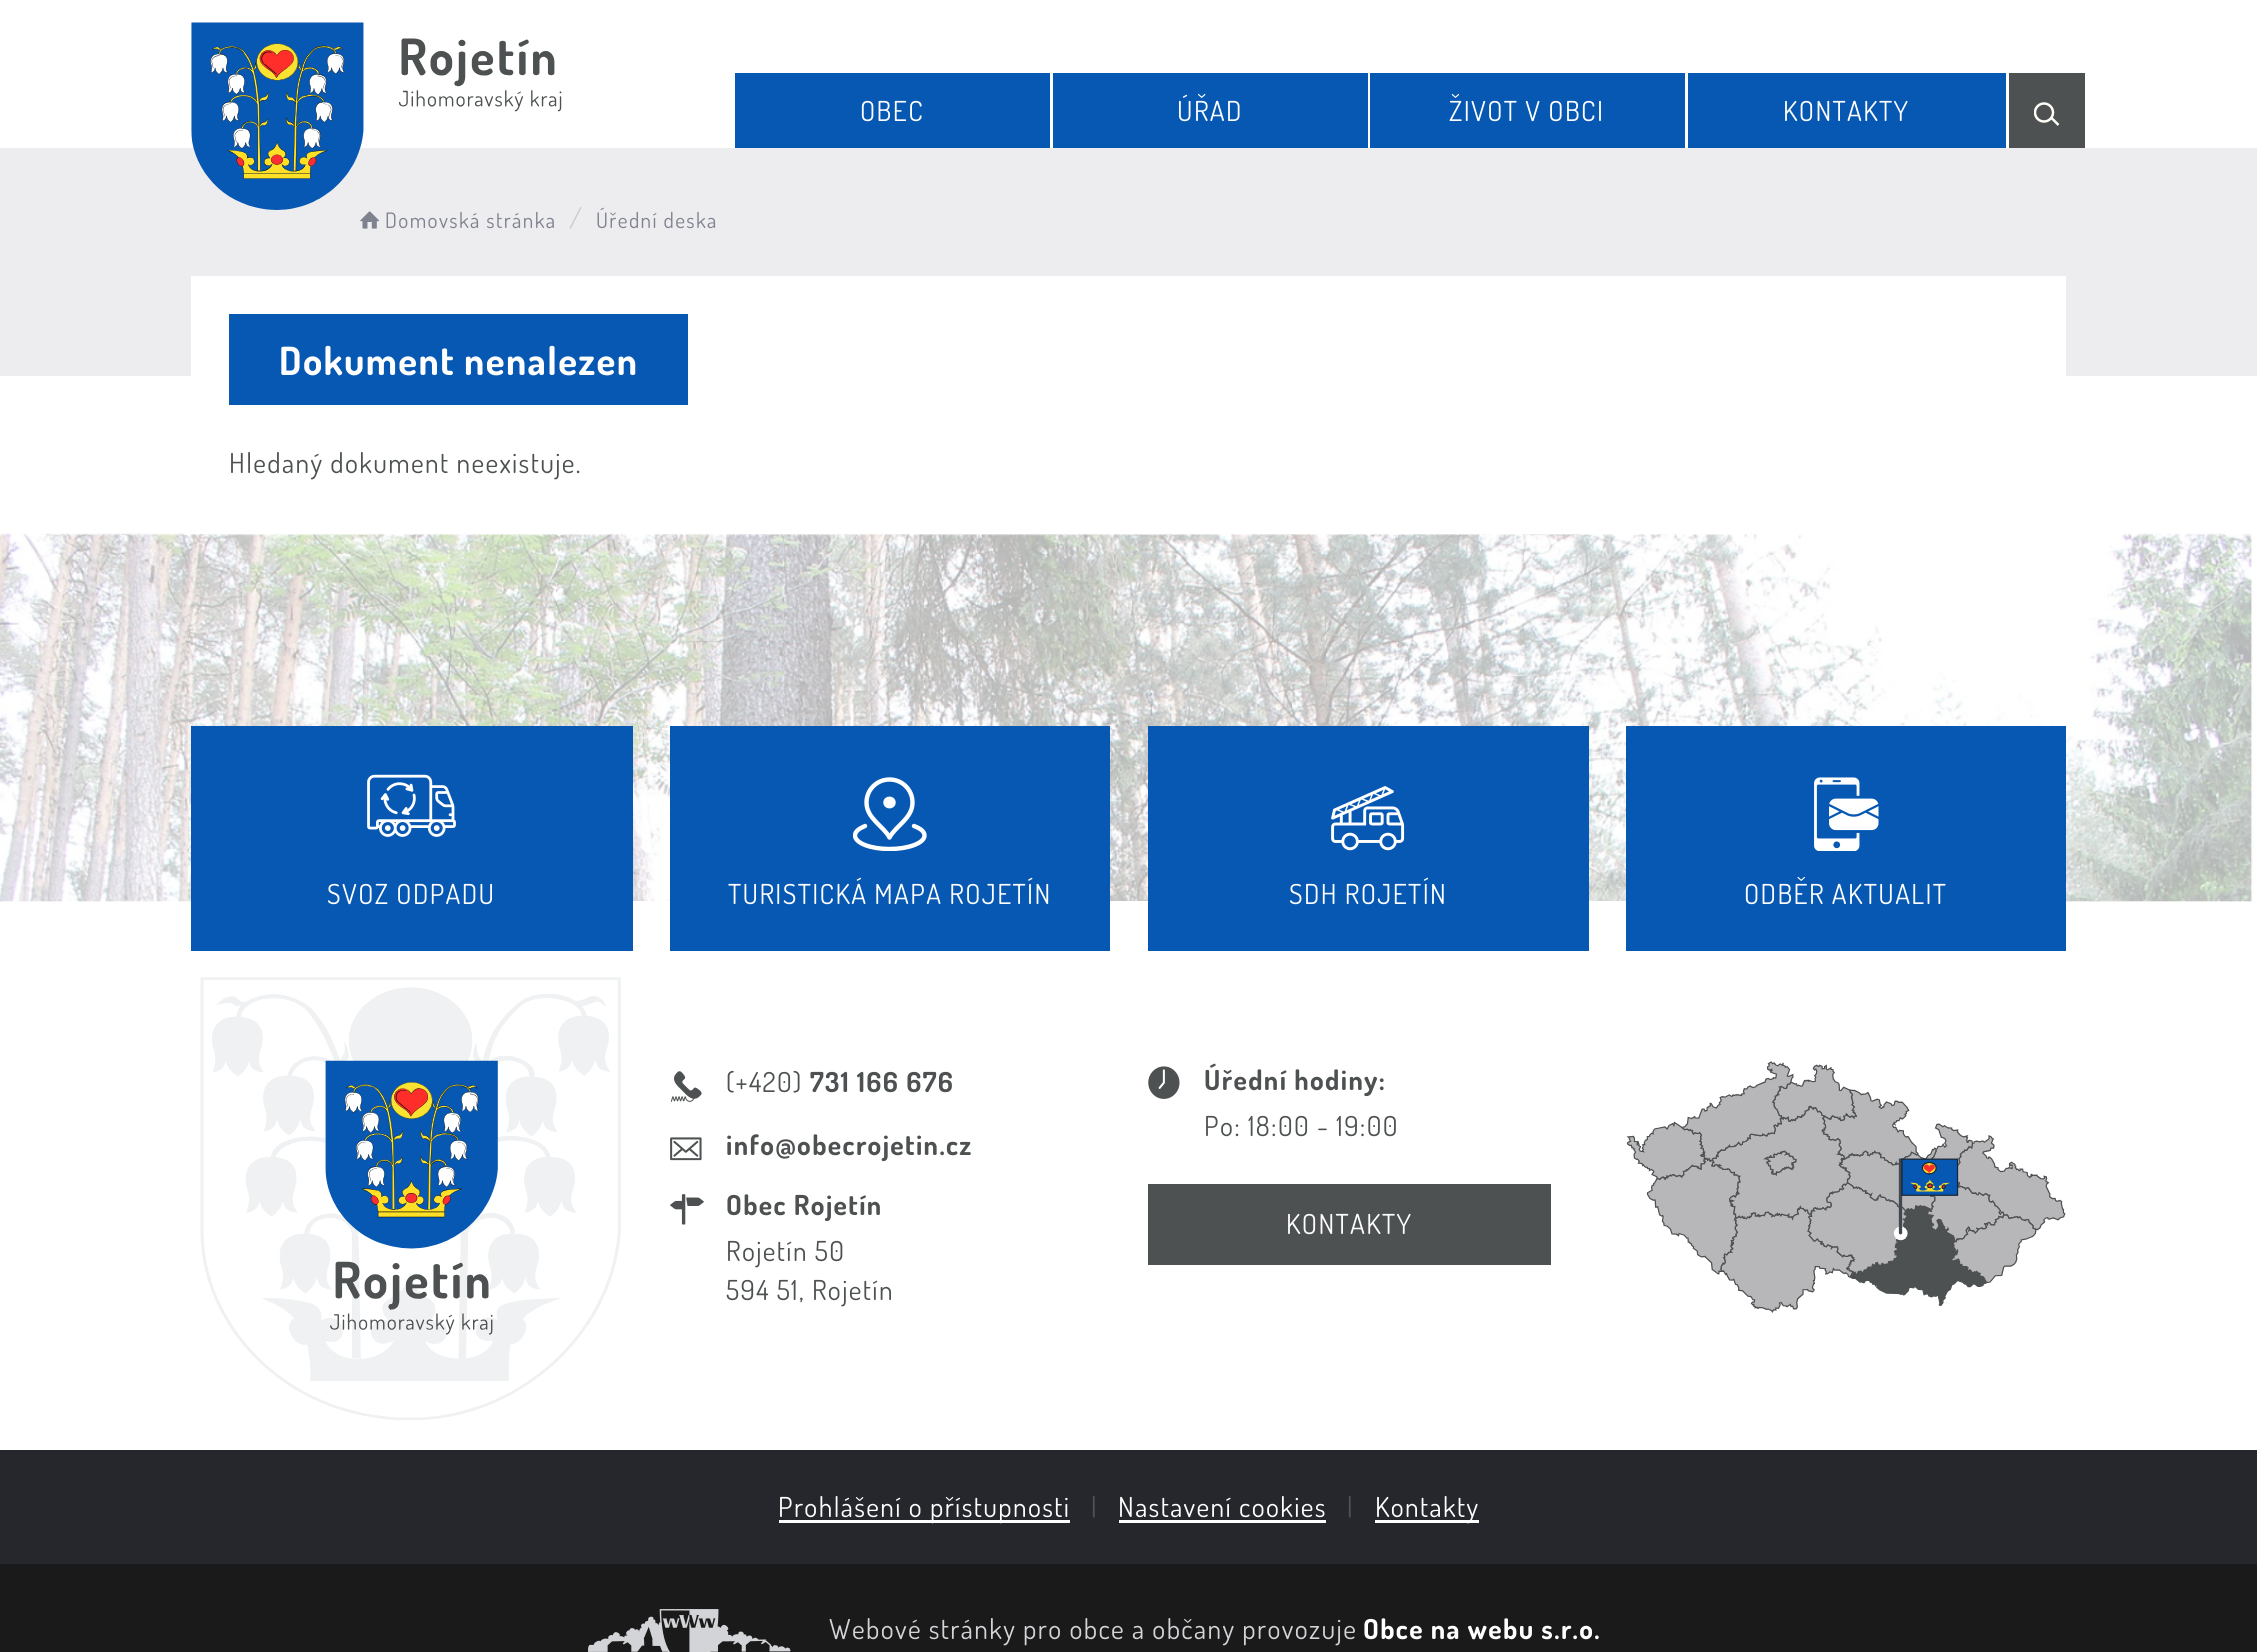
import math
import cairocffi as cairo

surface = cairo.ImageSurface(cairo.FORMAT_RGB24, 2257, 1652)
ctx = cairo.Context(surface)
options = cairo.FontOptions()
options.set_hint_metrics(cairo.HINT_METRICS_OFF)
options.set_hint_style(cairo.HINT_STYLE_NONE)
ctx.set_font_options(options)
ctx.set_miter_limit(4)


def rgb(r, g, b):
    ctx.set_source_rgb(r / 255, g / 255, b / 255)


def face(family, size, italic, bold):
    ctx.select_font_face(family, cairo.FONT_SLANT_ITALIC if italic else cairo.FONT_SLANT_NORMAL, cairo.FONT_WEIGHT_BOLD if bold else cairo.FONT_WEIGHT_NORMAL)
    ctx.set_font_size(size)


def tracked(x, y, s, letter, word):
    ctx.move_to(x, y)
    for ch in s:
        ctx.show_text(ch)
        ctx.rel_move_to(letter + word * (ch == ' '), 0)


def rect(x, y, w, h):
    ctx.rectangle(x, y, w, h)
    ctx.fill()


def image(path, x, y, w, h):
    ctx.save()
    ctx.set_source_surface(cairo.ImageSurface.create_from_png(path), x, y)
    ctx.rectangle(x, y, w, h)
    ctx.fill()
    ctx.restore()


rgb(255, 255, 255)
ctx.paint()
rgb(237, 237, 239)
rect(0, 148, 2257, 228)
image('image0.png', 191, 22, 371, 188)
rgb(7, 88, 179)
rect(735, 73, 315, 75)
face('Dosis', 27.5, 0, 0)
rgb(255, 255, 255)
tracked(860, 121, 'OBEC', 1.4, 0)
rgb(7, 88, 179)
rect(1053, 73, 315, 75)
rgb(255, 255, 255)
tracked(1177, 121, 'ÚŘAD', 1.4, 0)
rgb(7, 88, 179)
rect(1370, 73, 315, 75)
rgb(255, 255, 255)
tracked(1449, 121, 'ŽIVOT V OBCI', 1.4, 0)
rgb(7, 88, 179)
rect(1688, 73, 318, 75)
rgb(255, 255, 255)
tracked(1783, 121, 'KONTAKTY', 1.4, 0)
rgb(78, 81, 82)
rect(2009, 73, 76, 75)
ctx.save()
ctx.rectangle(2034, 101, 26, 25)
ctx.clip()
ctx.arc(2044, 112.5, 9, 0, 2 * math.pi)
rgb(255, 255, 248)
ctx.set_line_width(2.5)
ctx.stroke()
ctx.restore()
ctx.new_path()
ctx.move_to(2051.5, 118)
ctx.line_to(2058.5, 125)
rgb(255, 255, 248)
ctx.set_line_width(2.5)
ctx.stroke()
image('image1.png', 360, 211, 20, 18)
face('Dosis', 21.25, 0, 0)
rgb(126, 130, 143)
tracked(385, 228, 'Domovská stránka', 1.4, 0)
face('Dosis', 27.5, 0, 0)
rgb(204, 204, 204)
tracked(569, 228, '/', 1.4, 0)
face('Dosis', 21.25, 0, 0)
rgb(126, 130, 143)
tracked(596, 228, 'Úřední deska', 1.4, 0)
image('image2.png', 0, 533, 2253, 369)
rgb(255, 255, 255)
rect(191, 276, 1875, 258)
rgb(7, 88, 179)
rect(229, 314, 459, 91)
face('Dosis', 38.75, 0, 1)
rgb(255, 255, 255)
tracked(279, 375, 'Dokument nenalezen', 1.4, 0)
face('Dosis', 27.5, 0, 0)
rgb(78, 81, 82)
tracked(229, 473, 'Hledaný dokument neexistuje.', 1.4, 0)
rgb(255, 255, 255)
rect(191, 901, 1875, 1)
rgb(7, 88, 179)
rect(191, 726, 442, 225)
image('image3.png', 367, 774, 89, 63)
rgb(255, 255, 255)
tracked(327, 904, 'SVOZ ODPADU', 1.4, 0)
rgb(7, 88, 179)
rect(670, 726, 440, 225)
ctx.save()
ctx.rectangle(853, 776, 75, 75)
ctx.clip()
ctx.new_path()
ctx.move_to(865, 826)
ctx.curve_to(859, 828.5, 855, 831.5, 855, 835.5)
ctx.curve_to(855, 843, 870.5, 849, 889.5, 849)
ctx.curve_to(908.5, 849, 924.5, 843, 924.5, 835.5)
ctx.curve_to(924.5, 831.5, 920.5, 828.5, 914, 826)
ctx.move_to(889.5, 802.5)
ctx.line_to(889.5, 802.5)
ctx.move_to(912.5, 802.5)
ctx.curve_to(912.5, 818.5, 895.5, 826, 889.5, 837.5)
ctx.curve_to(883.5, 826, 866.5, 818.5, 866.5, 802.5)
ctx.curve_to(866.5, 790, 876.5, 779.5, 889.5, 779.5)
ctx.curve_to(902.5, 779.5, 912.5, 790, 912.5, 802.5)
ctx.close_path()
ctx.move_to(893.5, 802.5)
ctx.curve_to(893.5, 807.5, 885.5, 807.5, 885.5, 802.5)
ctx.curve_to(885.5, 797.5, 893.5, 797.5, 893.5, 802.5)
ctx.close_path()
rgb(255, 255, 255)
ctx.set_line_width(4.4)
ctx.set_line_cap(cairo.LINE_CAP_ROUND)
ctx.set_line_join(cairo.LINE_JOIN_ROUND)
ctx.stroke()
ctx.restore()
rgb(255, 255, 255)
tracked(728, 904, 'TURISTICKÁ MAPA ROJETÍN', 1.4, 0)
rgb(7, 88, 179)
rect(1148, 726, 441, 225)
image('image4.png', 1331, 786, 74, 65)
rgb(255, 255, 255)
tracked(1289, 904, 'SDH ROJETÍN', 1.4, 0)
rgb(7, 88, 179)
rect(1626, 726, 440, 225)
image('image5.png', 1814, 777, 65, 74)
rgb(255, 255, 255)
tracked(1744, 904, 'ODBĚR AKTUALIT', 1.4, 0)
image('image6.png', 200, 977, 421, 444)
image('image7.png', 325, 1060, 173, 275)
image('image8.png', 670, 1071, 32, 31)
rgb(78, 81, 82)
tracked(726, 1092, '(+420)', 1.4, 0)
face('Dosis', 27.5, 0, 1)
tracked(810, 1092, '731 166 676', 1.4, 0)
image('image9.png', 670, 1137, 32, 24)
tracked(726, 1155, 'info@obecrojetin.cz', 1.4, 0)
image('image10.png', 670, 1194, 34, 31)
tracked(726, 1215, 'Obec Rojetín', 1.4, 0)
face('Dosis', 27.5, 0, 0)
tracked(726, 1261, 'Rojetín 50', 1.4, 0)
tracked(726, 1300, '594 51, Rojetín', 1.4, 0)
image('image11.png', 1148, 1066, 32, 33)
face('Dosis', 27.5, 0, 1)
tracked(1204, 1090, 'Úřední hodiny:', 1.4, 0)
face('Dosis', 27.5, 0, 0)
tracked(1204, 1136, 'Po: 18:00 - 19:00', 1.4, 0)
rect(1148, 1184, 403, 81)
rgb(255, 255, 255)
tracked(1286, 1234, 'KONTAKTY', 1.4, 0)
image('image12.png', 1626, 1061, 440, 252)
rgb(38, 39, 45)
rect(0, 1450, 2257, 114)
rgb(255, 255, 255)
rect(779, 1520, 291, 3)
tracked(778, 1517, 'Prohlášení o přístupnosti', 1.4, 0)
rgb(78, 81, 82)
tracked(1091, 1517, '|', 1.4, 0)
rgb(255, 255, 255)
tracked(1118, 1517, 'Nastavení cookies', 1.4, 0)
rect(1119, 1520, 207, 3)
rgb(78, 81, 82)
tracked(1347, 1517, '|', 1.4, 0)
rgb(255, 255, 255)
rect(1375, 1520, 104, 3)
tracked(1375, 1517, 'Kontakty', 1.4, 0)
rgb(26, 26, 26)
rect(0, 1564, 2257, 88)
image('image13.png', 588, 1609, 203, 43)
rgb(211, 212, 215)
tracked(829, 1639, 'Webové stránky pro obce a občany provozuje', 1.4, 0)
face('Dosis', 27.5, 0, 1)
rgb(255, 255, 255)
tracked(1363, 1639, 'Obce na webu s.r.o.', 1.4, 0)
surface.write_to_png('render.png')
